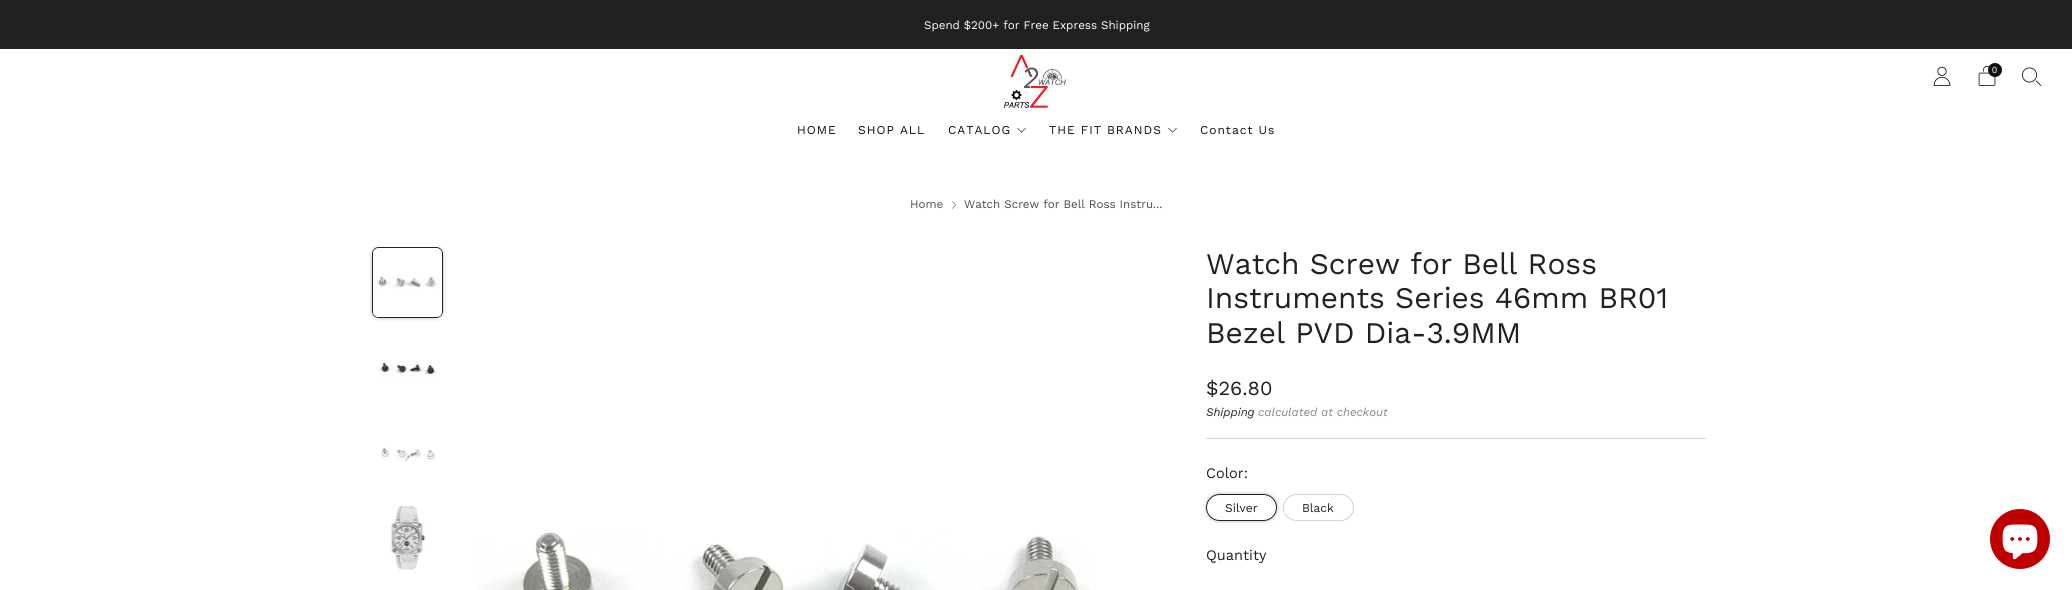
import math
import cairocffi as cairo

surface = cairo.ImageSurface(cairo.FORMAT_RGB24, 2072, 590)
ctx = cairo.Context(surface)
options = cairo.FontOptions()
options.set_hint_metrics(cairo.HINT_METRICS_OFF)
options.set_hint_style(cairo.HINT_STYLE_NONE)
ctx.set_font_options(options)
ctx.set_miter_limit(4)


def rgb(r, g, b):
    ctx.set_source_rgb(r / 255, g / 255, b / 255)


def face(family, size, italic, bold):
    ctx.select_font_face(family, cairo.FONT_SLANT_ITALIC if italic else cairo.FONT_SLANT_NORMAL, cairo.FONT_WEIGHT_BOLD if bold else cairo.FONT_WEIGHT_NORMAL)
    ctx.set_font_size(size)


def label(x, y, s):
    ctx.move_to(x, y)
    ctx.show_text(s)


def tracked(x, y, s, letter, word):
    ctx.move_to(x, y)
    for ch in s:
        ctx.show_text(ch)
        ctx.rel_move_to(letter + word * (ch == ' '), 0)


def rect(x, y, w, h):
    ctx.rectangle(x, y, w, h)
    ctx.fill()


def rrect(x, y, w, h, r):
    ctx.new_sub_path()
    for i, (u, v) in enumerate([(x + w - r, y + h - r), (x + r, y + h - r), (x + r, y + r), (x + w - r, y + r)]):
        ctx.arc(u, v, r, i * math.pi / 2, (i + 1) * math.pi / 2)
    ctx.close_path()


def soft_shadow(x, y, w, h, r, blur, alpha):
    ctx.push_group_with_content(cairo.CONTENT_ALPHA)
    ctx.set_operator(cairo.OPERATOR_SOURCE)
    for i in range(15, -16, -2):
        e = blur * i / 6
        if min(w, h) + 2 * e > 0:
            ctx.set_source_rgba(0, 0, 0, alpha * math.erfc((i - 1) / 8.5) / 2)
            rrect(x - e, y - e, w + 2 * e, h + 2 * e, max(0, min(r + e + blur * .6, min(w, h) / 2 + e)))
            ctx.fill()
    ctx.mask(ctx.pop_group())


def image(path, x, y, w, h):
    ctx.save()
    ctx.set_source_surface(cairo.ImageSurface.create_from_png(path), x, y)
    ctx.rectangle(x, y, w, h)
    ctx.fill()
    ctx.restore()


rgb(255, 255, 255)
ctx.paint()
rgb(33, 33, 33)
rect(0, 0, 2072, 49)
face('Work Sans', 11.6, 0, 0)
rgb(255, 255, 255)
label(924, 29, 'Spend $200+ for Free Express Shipping')
image('image0.png', 1004, 55, 62, 53)
image('image1.png', 1933, 66, 18, 20)
image('image2.png', 1978, 66, 18, 20)
rgb(17, 17, 17)
ctx.arc(1995, 70, 7, 0, 2 * math.pi)
ctx.fill()
face('Liberation Sans', 9, 0, 0)
rgb(255, 255, 255)
label(1992, 73, '0')
image('image3.png', 2022, 67, 20, 19)
face('Work Sans', 12, 0, 0)
rgb(17, 17, 17)
tracked(797, 134, 'HOME', 1, 0)
tracked(858, 134, 'SHOP ALL', 1, 0)
tracked(948, 134, 'CATALOG', 1, 0)
image('image4.png', 1017, 128, 9, 5)
tracked(1049, 134, 'THE FIT BRANDS', 1, 0)
image('image4.png', 1168, 128, 9, 5)
tracked(1200, 134, 'Contact Us', 1, 0)
face('Work Sans', 11.6, 0, 0)
rgb(77, 77, 77)
label(910, 208, 'Home')
image('image5.png', 952, 201, 5, 8)
label(964, 208, 'Watch Screw for Bell Ross Instru...')
ctx.save()
ctx.rectangle(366, 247, 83, 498)
ctx.clip()
rgb(33, 33, 33)
soft_shadow(371, 246, 73, 73, 8, 1.5, 0.2)
ctx.restore()
rrect(372.5, 247.5, 70, 70, 6.5)
rgb(33, 33, 33)
ctx.set_line_width(1)
ctx.stroke()
image('image6.png', 373, 248, 69, 69)
image('image7.png', 378, 361, 61, 19)
image('image8.png', 381, 447, 55, 14)
image('image9.png', 389, 505, 37, 66)
image('image10.png', 478, 532, 613, 58)
face('Work Sans', 29.9, 0, 0)
label(1206, 274, 'Watch Screw for Bell Ross')
label(1206, 308, 'Instruments Series 46mm BR01')
label(1206, 343, 'Bezel PVD Dia-3.9MM')
face('Work Sans', 20, 0, 0)
label(1206, 395, '$26.80')
face('Work Sans', 11.6, 1, 0)
label(1206, 416, 'Shipping')
rgb(133, 133, 133)
label(1258, 416, 'calculated at checkout')
rgb(211, 211, 211)
rect(1206, 438, 500, 1)
face('Work Sans', 14.5, 0, 0)
rgb(33, 33, 33)
label(1206, 478, 'Color:')
ctx.save()
ctx.set_fill_rule(cairo.FILL_RULE_EVEN_ODD)
ctx.new_path()
ctx.move_to(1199, 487)
ctx.line_to(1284, 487)
ctx.line_to(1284, 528)
ctx.line_to(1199, 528)
ctx.close_path()
ctx.move_to(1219.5, 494)
ctx.line_to(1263.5, 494)
ctx.curve_to(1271, 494, 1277, 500, 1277, 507.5)
ctx.curve_to(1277, 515, 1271, 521, 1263.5, 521)
ctx.line_to(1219.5, 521)
ctx.curve_to(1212, 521, 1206, 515, 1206, 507.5)
ctx.curve_to(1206, 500, 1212, 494, 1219.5, 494)
ctx.close_path()
ctx.clip()
rgb(33, 33, 33)
soft_shadow(1205, 493, 73, 29, 14.5, 1.5, 0.2)
ctx.restore()
rrect(1206.5, 494.5, 70, 26, 13)
ctx.stroke()
face('Work Sans', 12, 0, 0)
label(1225, 512, 'Silver')
rrect(1283.5, 494.5, 70, 26, 13)
rgb(211, 211, 211)
ctx.stroke()
rgb(33, 33, 33)
label(1302, 512, 'Black')
face('Work Sans', 14.5, 0, 0)
label(1206, 560, 'Quantity')
rgb(192, 0, 0)
ctx.new_path()
ctx.arc(2020, 539, 30, 0, 2 * math.pi)
ctx.fill()
image('image11.png', 2002, 524, 36, 36)
surface.write_to_png('render.png')
